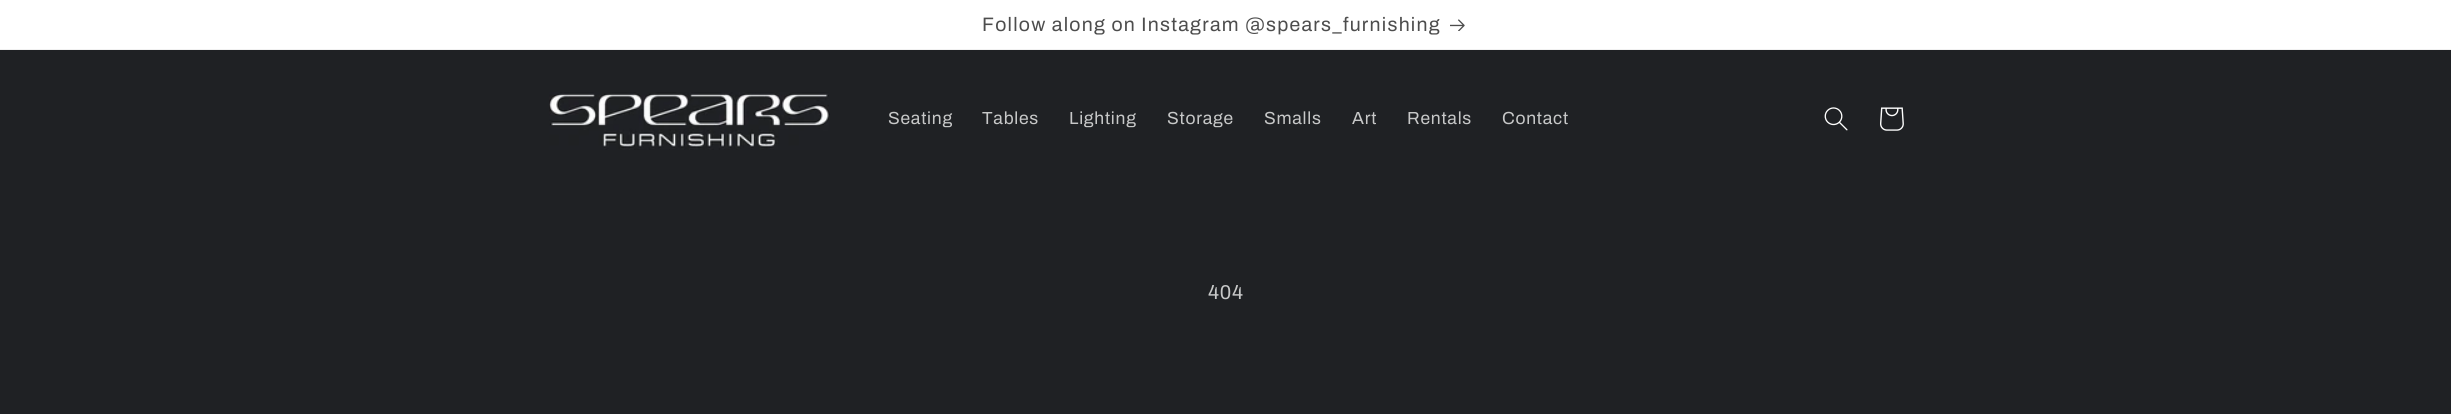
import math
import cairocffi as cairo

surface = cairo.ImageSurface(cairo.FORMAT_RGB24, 2451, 414)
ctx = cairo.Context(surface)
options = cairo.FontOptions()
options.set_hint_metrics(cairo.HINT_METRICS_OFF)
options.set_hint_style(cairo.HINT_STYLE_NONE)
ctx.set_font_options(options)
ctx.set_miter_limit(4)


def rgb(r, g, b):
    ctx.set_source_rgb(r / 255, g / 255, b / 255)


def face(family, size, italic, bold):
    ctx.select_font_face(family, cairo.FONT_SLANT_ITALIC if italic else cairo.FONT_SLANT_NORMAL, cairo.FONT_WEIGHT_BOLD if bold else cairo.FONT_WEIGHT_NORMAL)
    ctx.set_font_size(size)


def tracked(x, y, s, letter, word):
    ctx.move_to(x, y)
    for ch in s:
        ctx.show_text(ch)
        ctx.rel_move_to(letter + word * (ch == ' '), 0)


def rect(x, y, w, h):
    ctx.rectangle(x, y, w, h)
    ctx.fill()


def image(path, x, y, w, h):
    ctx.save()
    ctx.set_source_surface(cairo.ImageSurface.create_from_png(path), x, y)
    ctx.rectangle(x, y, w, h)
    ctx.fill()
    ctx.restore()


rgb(31, 33, 36)
ctx.paint()
rgb(255, 255, 255)
rect(0, 0, 2451, 49)
rgb(241, 241, 241)
rect(0, 49, 2451, 1)
face('Archivo', 19.5, 0, 0)
rgb(77, 77, 77)
tracked(982, 31, 'Follow along on Instagram @spears_furnishing', 1.25, 0)
image('image0.png', 1450, 19, 15, 12)
image('image1.png', 549, 92, 281, 58)
face('Archivo', 17.5, 0, 0)
rgb(199, 200, 200)
tracked(888, 124, 'Seating', 0.75, 0)
tracked(982, 124, 'Tables', 0.75, 0)
tracked(1069, 124, 'Lighting', 0.75, 0)
tracked(1167, 124, 'Storage', 0.75, 0)
tracked(1264, 124, 'Smalls', 0.75, 0)
tracked(1352, 124, 'Art', 0.75, 0)
tracked(1407, 124, 'Rentals', 0.75, 0)
tracked(1502, 124, 'Contact', 0.75, 0)
image('image2.png', 1824, 107, 24, 24)
image('image3.png', 1880, 107, 24, 24)
face('Archivo', 20, 0, 0)
tracked(1208, 299, '404', 0.75, 0)
surface.write_to_png('render.png')
